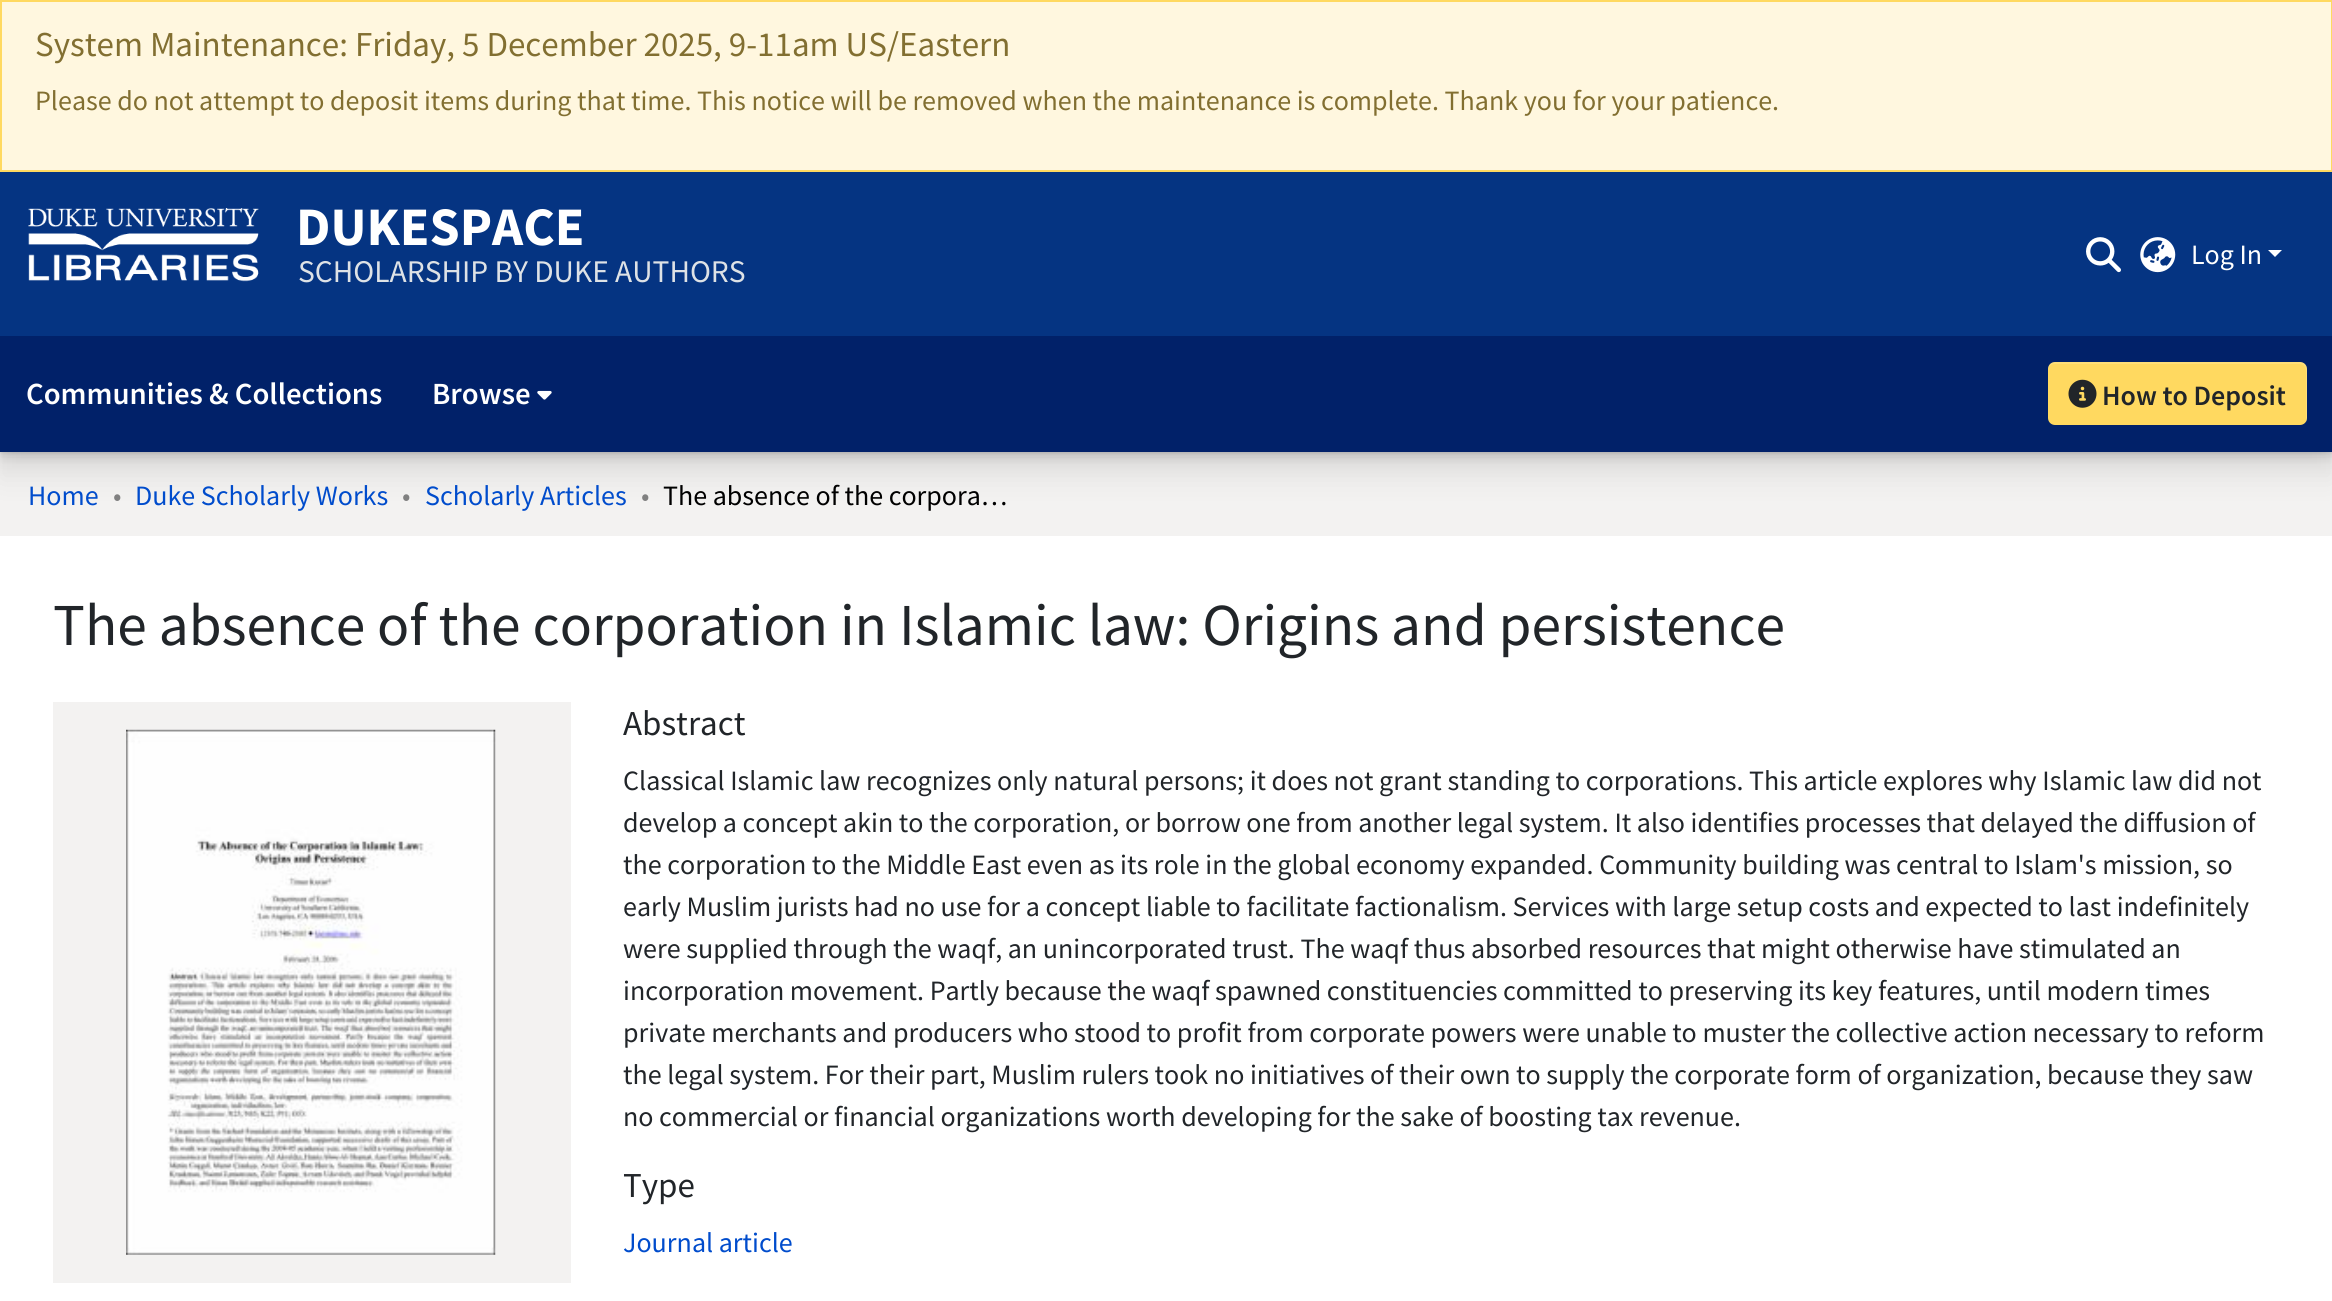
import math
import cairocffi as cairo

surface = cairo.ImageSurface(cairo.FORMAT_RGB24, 2332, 1301)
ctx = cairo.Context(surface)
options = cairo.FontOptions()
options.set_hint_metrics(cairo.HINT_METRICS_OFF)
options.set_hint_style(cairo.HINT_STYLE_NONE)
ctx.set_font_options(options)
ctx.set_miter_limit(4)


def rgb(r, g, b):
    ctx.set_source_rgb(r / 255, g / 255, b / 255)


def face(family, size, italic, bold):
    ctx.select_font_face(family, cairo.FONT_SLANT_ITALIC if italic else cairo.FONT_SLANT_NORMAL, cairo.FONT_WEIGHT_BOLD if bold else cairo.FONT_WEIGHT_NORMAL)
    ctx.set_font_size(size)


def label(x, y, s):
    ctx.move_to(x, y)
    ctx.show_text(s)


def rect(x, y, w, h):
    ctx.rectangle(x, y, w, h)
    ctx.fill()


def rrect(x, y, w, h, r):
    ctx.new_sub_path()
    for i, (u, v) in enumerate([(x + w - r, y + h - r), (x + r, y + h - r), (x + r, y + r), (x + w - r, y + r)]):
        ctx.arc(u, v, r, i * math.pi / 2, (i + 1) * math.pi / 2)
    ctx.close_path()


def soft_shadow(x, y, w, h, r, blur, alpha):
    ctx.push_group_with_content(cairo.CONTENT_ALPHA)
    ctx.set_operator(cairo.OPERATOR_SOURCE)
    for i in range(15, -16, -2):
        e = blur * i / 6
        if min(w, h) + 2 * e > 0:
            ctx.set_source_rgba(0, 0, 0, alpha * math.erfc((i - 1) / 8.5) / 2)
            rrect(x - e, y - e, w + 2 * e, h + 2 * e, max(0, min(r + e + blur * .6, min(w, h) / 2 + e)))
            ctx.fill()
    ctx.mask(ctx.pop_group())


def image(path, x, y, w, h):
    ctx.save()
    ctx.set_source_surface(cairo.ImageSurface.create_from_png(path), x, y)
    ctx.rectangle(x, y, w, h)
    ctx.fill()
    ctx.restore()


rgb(243, 242, 241)
ctx.paint()
rgb(255, 247, 223)
ctx.rectangle(1, 1, 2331, 170)
ctx.fill_preserve()
rgb(255, 217, 96)
ctx.stroke()
face('Source Sans Pro', 35, 0, 0)
rgb(130, 111, 49)
label(35, 56, 'System Maintenance: Friday, 5 December 2025, 9-11am US/Eastern')
face('Source Sans Pro', 28, 0, 0)
label(35, 110, 'Please do not attempt to deposit items during that time. This notice will be removed when the maintenance is complete. Thank you for your patience.')
rgb(5, 52, 130)
rect(0, 172, 2332, 164)
image('image0.png', 28, 208, 231, 74)
face('Source Sans Pro', 54.25, 0, 1)
rgb(255, 255, 255)
label(296, 245, 'DUKESPACE')
face('Source Sans Pro', 31.5, 0, 0)
rgb(222, 226, 230)
label(298, 282, 'SCHOLARSHIP BY DUKE AUTHORS')
image('image1.png', 2086, 237, 35, 36)
image('image2.png', 2140, 237, 36, 36)
face('Source Sans Pro', 28, 0, 0)
rgb(255, 255, 255)
label(2191, 264, 'Log In')
ctx.new_path()
ctx.move_to(2268, 250)
ctx.line_to(2282, 250)
ctx.line_to(2275, 257)
ctx.close_path()
ctx.fill()
rgb(0, 0, 0)
soft_shadow(0, 364, 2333, 116, 0, 14, 0.06)
soft_shadow(0, 350, 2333, 116, 0, 7, 0.06)
soft_shadow(0, 343, 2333, 116, 0, 3.5, 0.06)
soft_shadow(0, 340, 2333, 115, 0, 2, 0.06)
soft_shadow(0, 338, 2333, 115, 0, 1, 0.06)
rgb(1, 33, 105)
rect(0, 336, 2332, 116)
face('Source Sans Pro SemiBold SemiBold', 30.75, 0, 0)
rgb(255, 255, 255)
label(26, 404, 'Communities & Collections')
label(432, 404, 'Browse')
image('image3.png', 537, 390, 15, 10)
rgb(255, 217, 96)
rrect(2048, 362, 259, 63, 7)
ctx.fill()
ctx.set_source_rgba(1, 1, 1, 0.15)
ctx.new_path()
ctx.move_to(2054, 364)
ctx.line_to(2300, 364)
ctx.curve_to(2303, 364, 2306, 367, 2306, 371)
ctx.line_to(2306, 422)
ctx.curve_to(2307, 421, 2307, 419, 2307, 418)
ctx.line_to(2307, 369)
ctx.curve_to(2307, 365, 2304, 362, 2300, 362)
ctx.line_to(2055, 362)
ctx.curve_to(2051, 362, 2048, 365, 2048, 369)
ctx.line_to(2048, 371)
ctx.curve_to(2048, 367, 2051, 364, 2054, 364)
ctx.close_path()
ctx.fill()
image('image4.png', 2068, 379, 29, 29)
face('Source Sans Pro SemiBold SemiBold', 28, 0, 0)
rgb(33, 37, 41)
label(2102, 405, 'How to Deposit')
face('Source Sans Pro', 28, 0, 0)
rgb(0, 76, 204)
label(28, 505, 'Home')
rgb(128, 128, 128)
label(113, 505, '•')
rgb(0, 76, 204)
label(135, 505, 'Duke Scholarly Works')
rgb(128, 128, 128)
label(402, 505, '•')
rgb(0, 76, 204)
label(425, 505, 'Scholarly Articles')
rgb(128, 128, 128)
label(641, 505, '•')
rgb(0, 0, 0)
label(663, 505, 'The absence of the corpora…')
rgb(255, 255, 255)
rect(0, 536, 2332, 765)
face('Source Sans Pro', 59.5, 0, 0)
rgb(33, 37, 41)
label(53, 645, 'The absence of the corporation in Islamic law: Origins and persistence')
rgb(243, 242, 241)
rect(53, 702, 518, 581)
image('image5.png', 126, 729, 370, 526)
face('Source Sans Pro', 35, 0, 0)
rgb(33, 37, 41)
label(623, 735, 'Abstract')
face('Source Sans Pro', 28, 0, 0)
label(623, 790, 'Classical Islamic law recognizes only natural persons; it does not grant standing to corporations. This article explores why Islamic law did not')
label(623, 832, 'develop a concept akin to the corporation, or borrow one from another legal system. It also identifies processes that delayed the diffusion of')
label(623, 874, 'the corporation to the Middle East even as its role in the global economy expanded. Community building was central to Islam\'s mission, so')
label(623, 916, 'early Muslim jurists had no use for a concept liable to facilitate factionalism. Services with large setup costs and expected to last indefinitely')
label(623, 958, 'were supplied through the waqf, an unincorporated trust. The waqf thus absorbed resources that might otherwise have stimulated an')
label(623, 1000, 'incorporation movement. Partly because the waqf spawned constituencies committed to preserving its key features, until modern times')
label(623, 1042, 'private merchants and producers who stood to profit from corporate powers were unable to muster the collective action necessary to reform')
label(623, 1084, 'the legal system. For their part, Muslim rulers took no initiatives of their own to supply the corporate form of organization, because they saw')
label(623, 1126, 'no commercial or financial organizations worth developing for the sake of boosting tax revenue.')
face('Source Sans Pro', 35, 0, 0)
label(623, 1197, 'Type')
face('Source Sans Pro', 28, 0, 0)
rgb(0, 76, 204)
label(623, 1252, 'Journal article')
surface.write_to_png('render.png')
